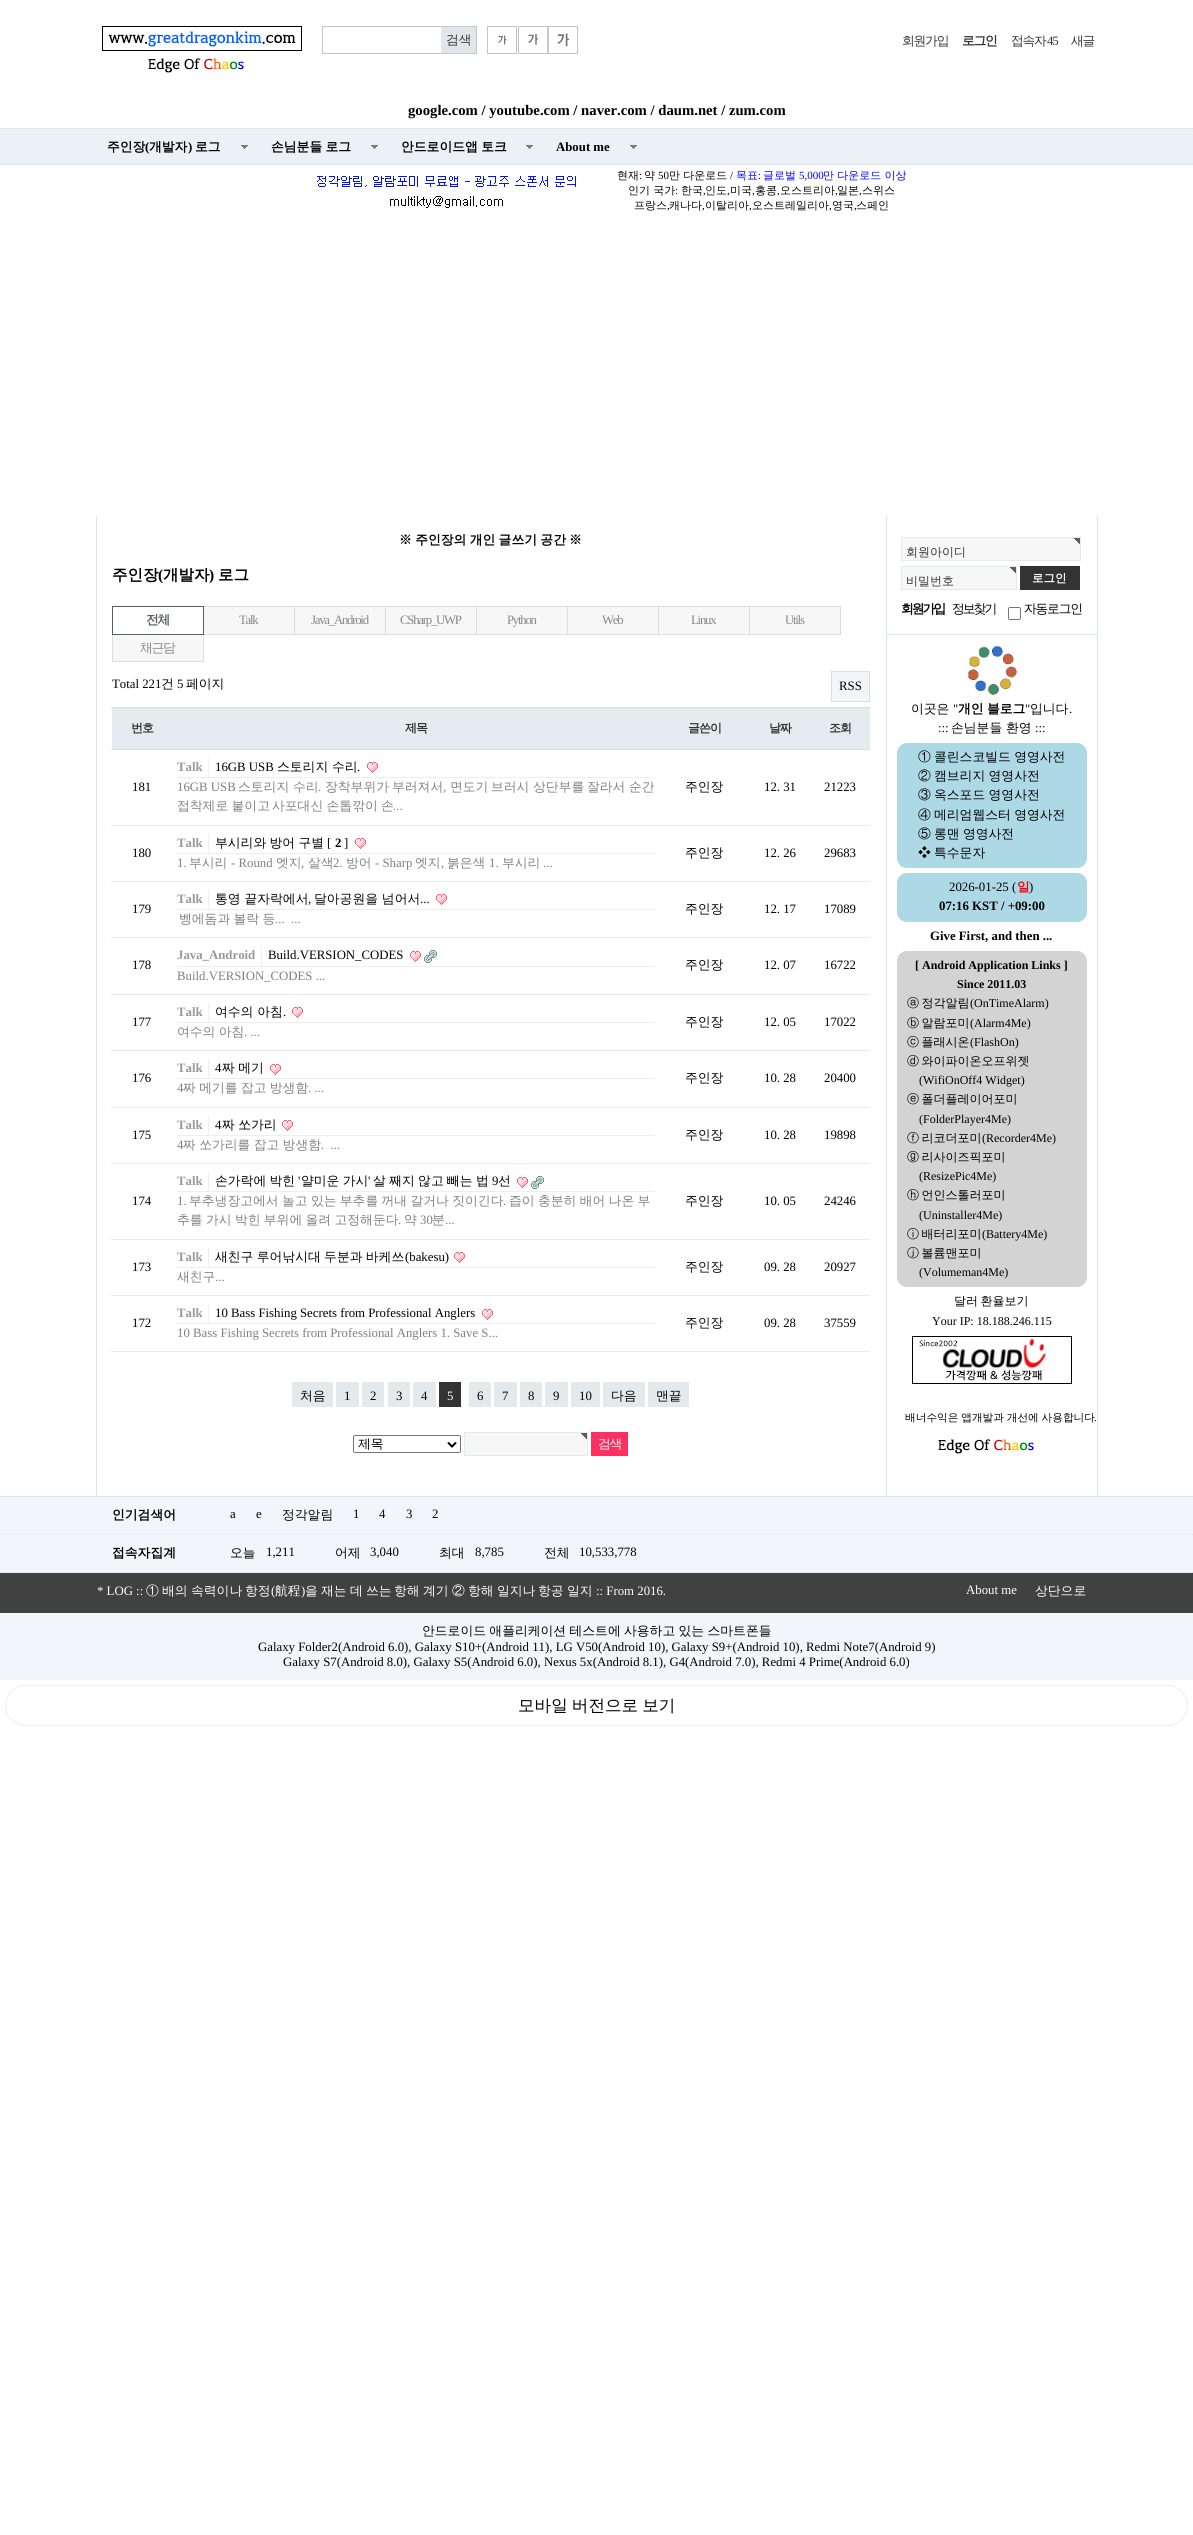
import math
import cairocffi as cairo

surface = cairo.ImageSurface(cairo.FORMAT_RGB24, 1193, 2535)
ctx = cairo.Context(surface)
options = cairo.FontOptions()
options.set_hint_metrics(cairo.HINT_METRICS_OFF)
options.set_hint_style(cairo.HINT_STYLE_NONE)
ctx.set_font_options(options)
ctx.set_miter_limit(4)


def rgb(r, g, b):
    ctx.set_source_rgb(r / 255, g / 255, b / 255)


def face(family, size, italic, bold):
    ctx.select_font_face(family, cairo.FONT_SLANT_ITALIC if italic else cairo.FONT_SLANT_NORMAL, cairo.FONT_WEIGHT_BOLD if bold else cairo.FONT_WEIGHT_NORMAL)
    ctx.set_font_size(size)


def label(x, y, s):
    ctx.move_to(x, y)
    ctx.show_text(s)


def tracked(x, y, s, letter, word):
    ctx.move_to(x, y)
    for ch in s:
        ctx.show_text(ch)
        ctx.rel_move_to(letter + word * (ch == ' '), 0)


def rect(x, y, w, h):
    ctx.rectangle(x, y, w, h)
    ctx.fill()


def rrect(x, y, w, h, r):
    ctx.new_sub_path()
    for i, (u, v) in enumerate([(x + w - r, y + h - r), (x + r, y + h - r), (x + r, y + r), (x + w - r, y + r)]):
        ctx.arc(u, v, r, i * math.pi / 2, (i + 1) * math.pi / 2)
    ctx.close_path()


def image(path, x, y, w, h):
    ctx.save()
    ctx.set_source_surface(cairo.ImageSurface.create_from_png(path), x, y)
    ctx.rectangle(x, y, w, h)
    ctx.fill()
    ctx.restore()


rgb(255, 255, 255)
ctx.paint()
image('image0.png', 102, 26, 200, 25)
image('image1.png', 148, 58, 96, 15)
ctx.rectangle(322.5, 26.5, 154, 27)
rgb(195, 198, 202)
ctx.set_line_width(1)
ctx.stroke()
rgb(226, 230, 235)
rect(441, 27, 35, 26)
face('WenQuanYi Zen Hei Medium', 12.8, 0, 0)
rgb(51, 51, 51)
label(446, 44, '검색')
ctx.rectangle(487.5, 26.5, 29, 27)
rgb(195, 198, 202)
ctx.stroke()
image('image2.png', 498, 35, 9, 10)
ctx.rectangle(518.5, 26.5, 29, 27)
ctx.stroke()
image('image3.png', 528, 34, 10, 11)
ctx.rectangle(548.5, 26.5, 29, 27)
ctx.stroke()
image('image4.png', 557, 33, 12, 14)
rgb(51, 51, 51)
tracked(902, 45, '회원가입', -1.25, 0)
face('WenQuanYi Zen Hei', 12.8, 0, 1)
tracked(962, 45, '로그인', -1.25, 0)
face('WenQuanYi Zen Hei Medium', 12.8, 0, 0)
tracked(1011, 45, '접속자', -1.25, 0)
face('Liberation Serif', 12.8, 0, 0)
tracked(1047, 45, '45', -1.25, 0)
face('WenQuanYi Zen Hei Medium', 12.8, 0, 0)
tracked(1071, 45, '새글', -1.25, 0)
face('Liberation Serif', 14.7, 0, 1)
rgb(0, 0, 0)
label(408, 115, 'google.com / youtube.com / naver.com / daum.net / zum.com')
rgb(236, 240, 247)
rect(0, 128, 1193, 36)
ctx.new_path()
ctx.move_to(0, 128.5)
ctx.line_to(1193, 128.5)
rgb(221, 228, 233)
ctx.set_dash([1, 1])
ctx.stroke()
rect(0, 164, 1193, 1)
image('image5.png', 241, 145, 7, 4)
face('WenQuanYi Zen Hei', 12.8, 0, 1)
rgb(0, 0, 0)
label(107, 151, '주인장')
face('Liberation Serif', 12.8, 0, 1)
label(145, 151, '(')
face('WenQuanYi Zen Hei', 12.8, 0, 1)
label(149, 151, '개발자')
face('Liberation Serif', 12.8, 0, 1)
label(188, 151, ')')
face('WenQuanYi Zen Hei', 12.8, 0, 1)
label(195, 151, '로그')
image('image5.png', 371, 145, 7, 4)
tracked(271, 151, '손님분들 로그', 0, -0.5)
image('image5.png', 526, 145, 7, 4)
tracked(401, 151, '안드로이드앱 토크', 0, -0.5)
image('image5.png', 630, 145, 7, 4)
face('Liberation Serif', 12.8, 0, 1)
label(556, 151, 'About me')
image('image6.png', 317, 176, 259, 32)
face('WenQuanYi Zen Hei Medium', 11, 0, 0)
label(617, 179, '현재')
face('Liberation Serif', 11, 0, 0)
label(639, 179, ':')
face('WenQuanYi Zen Hei Medium', 11, 0, 0)
label(644, 179, '약')
face('Liberation Serif', 11, 0, 0)
label(658, 179, '50')
face('WenQuanYi Zen Hei Medium', 11, 0, 0)
label(669, 179, '만 다운로드')
face('Liberation Serif', 11, 0, 0)
label(730, 179, '/')
face('WenQuanYi Zen Hei Medium', 11, 0, 0)
rgb(0, 0, 255)
label(736, 179, '목표')
face('Liberation Serif', 11, 0, 0)
label(758, 179, ':')
face('WenQuanYi Zen Hei Medium', 11, 0, 0)
label(763, 179, '글로벌')
face('Liberation Serif', 11, 0, 0)
label(799, 179, '5,000')
face('WenQuanYi Zen Hei Medium', 11, 0, 0)
label(823, 179, '만 다운로드 이상')
rgb(0, 0, 0)
label(628, 194, '인기 국가')
face('Liberation Serif', 11, 0, 0)
label(675, 194, ':')
face('WenQuanYi Zen Hei Medium', 11, 0, 0)
label(681, 194, '한국')
face('Liberation Serif', 11, 0, 0)
label(703, 194, ',')
face('WenQuanYi Zen Hei Medium', 11, 0, 0)
label(705, 194, '인도')
face('Liberation Serif', 11, 0, 0)
label(727, 194, ',')
face('WenQuanYi Zen Hei Medium', 11, 0, 0)
label(730, 194, '미국')
face('Liberation Serif', 11, 0, 0)
label(752, 194, ',')
face('WenQuanYi Zen Hei Medium', 11, 0, 0)
label(755, 194, '홍콩')
face('Liberation Serif', 11, 0, 0)
label(777, 194, ',')
face('WenQuanYi Zen Hei Medium', 11, 0, 0)
label(780, 194, '오스트리아')
face('Liberation Serif', 11, 0, 0)
label(835, 194, ',')
face('WenQuanYi Zen Hei Medium', 11, 0, 0)
label(837, 194, '일본')
face('Liberation Serif', 11, 0, 0)
label(859, 194, ',')
face('WenQuanYi Zen Hei Medium', 11, 0, 0)
label(862, 194, '스위스')
label(634, 209, '프랑스')
face('Liberation Serif', 11, 0, 0)
label(667, 209, ',')
face('WenQuanYi Zen Hei Medium', 11, 0, 0)
label(669, 209, '캐나다')
face('Liberation Serif', 11, 0, 0)
label(702, 209, ',')
face('WenQuanYi Zen Hei Medium', 11, 0, 0)
label(705, 209, '이탈리아')
face('Liberation Serif', 11, 0, 0)
label(749, 209, ',')
face('WenQuanYi Zen Hei Medium', 11, 0, 0)
label(752, 209, '오스트레일리아')
face('Liberation Serif', 11, 0, 0)
label(829, 209, ',')
face('WenQuanYi Zen Hei Medium', 11, 0, 0)
label(832, 209, '영국')
face('Liberation Serif', 11, 0, 0)
label(854, 209, ',')
face('WenQuanYi Zen Hei Medium', 11, 0, 0)
label(856, 209, '스페인')
rgb(221, 228, 233)
rect(1097, 516, 1, 980)
rect(96, 516, 1, 980)
rect(886, 516, 1, 980)
face('WenQuanYi Zen Hei', 12.8, 0, 1)
rgb(0, 0, 0)
tracked(399, 544, '※ 주인장의 개인 글쓰기 공간', 0, -0.5)
label(569, 544, '※')
face('WenQuanYi Zen Hei', 15.5, 0, 1)
label(112, 580, '주인장')
face('Liberation Serif', 15.5, 0, 1)
label(158, 580, '(')
face('WenQuanYi Zen Hei', 15.5, 0, 1)
label(163, 580, '개발자')
face('Liberation Serif', 15.5, 0, 1)
label(209, 580, ')')
face('WenQuanYi Zen Hei', 15.5, 0, 1)
label(218, 580, '로그')
rgb(247, 247, 247)
ctx.rectangle(203.5, 606.5, 91, 28)
ctx.fill_preserve()
rgb(221, 221, 221)
ctx.set_dash([])
ctx.stroke()
rgb(247, 247, 247)
ctx.rectangle(112.5, 634.5, 91, 27)
ctx.fill_preserve()
rgb(221, 221, 221)
ctx.stroke()
ctx.rectangle(112.5, 606.5, 91, 28)
rgb(86, 94, 96)
ctx.stroke()
face('WenQuanYi Zen Hei', 12.8, 0, 1)
tracked(146, 624, '전체', -1.25, 0)
face('Liberation Serif', 12.8, 0, 0)
rgb(136, 136, 136)
tracked(239, 624, 'Talk', -1.25, 0)
rgb(247, 247, 247)
ctx.rectangle(294.5, 606.5, 91, 28)
ctx.fill_preserve()
rgb(221, 221, 221)
ctx.stroke()
rgb(136, 136, 136)
tracked(311, 624, 'Java_Android', -1.25, 0)
rgb(247, 247, 247)
ctx.rectangle(385.5, 606.5, 91, 28)
ctx.fill_preserve()
rgb(221, 221, 221)
ctx.stroke()
rgb(136, 136, 136)
tracked(400, 624, 'CSharp_UWP', -1.25, 0)
rgb(247, 247, 247)
ctx.rectangle(476.5, 606.5, 91, 28)
ctx.fill_preserve()
rgb(221, 221, 221)
ctx.stroke()
rgb(136, 136, 136)
tracked(507, 624, 'Python', -1.25, 0)
rgb(247, 247, 247)
ctx.rectangle(567.5, 606.5, 91, 28)
ctx.fill_preserve()
rgb(221, 221, 221)
ctx.stroke()
rgb(136, 136, 136)
tracked(602, 624, 'Web', -1.25, 0)
rgb(247, 247, 247)
ctx.rectangle(658.5, 606.5, 91, 28)
ctx.fill_preserve()
rgb(221, 221, 221)
ctx.stroke()
rgb(136, 136, 136)
tracked(691, 624, 'Linux', -1.25, 0)
rgb(247, 247, 247)
ctx.rectangle(749.5, 606.5, 91, 28)
ctx.fill_preserve()
rgb(221, 221, 221)
ctx.stroke()
rgb(136, 136, 136)
tracked(785, 624, 'Utils', -1.25, 0)
face('WenQuanYi Zen Hei Medium', 12.8, 0, 0)
tracked(140, 652, '채근담', -1.25, 0)
face('Liberation Serif', 12.8, 0, 0)
rgb(0, 0, 0)
label(112, 688, 'Total 221')
face('WenQuanYi Zen Hei Medium', 12.8, 0, 0)
label(161, 688, '건')
face('Liberation Serif', 12.8, 0, 0)
label(177, 688, '5')
face('WenQuanYi Zen Hei Medium', 12.8, 0, 0)
label(186, 688, '페이지')
rgb(242, 245, 249)
ctx.rectangle(831.5, 671.5, 38, 30)
ctx.fill_preserve()
rgb(217, 222, 217)
ctx.stroke()
face('Liberation Serif', 12.8, 0, 0)
rgb(0, 0, 0)
label(839, 690, 'RSS')
rgb(229, 236, 239)
rect(112, 708, 758, 41)
face('WenQuanYi Zen Hei', 12, 0, 1)
rgb(51, 51, 51)
tracked(131, 732, '번호', -1, 0)
tracked(405, 732, '제목', -1, 0)
tracked(688, 732, '글쓴이', -1, 0)
tracked(769, 732, '날짜', -1, 0)
rgb(209, 222, 226)
rect(111, 707, 759, 1)
rect(111, 749, 759, 1)
rgb(51, 51, 51)
tracked(829, 732, '조회', -1, 0)
face('Liberation Serif', 12.8, 0, 0)
rgb(0, 0, 0)
label(132, 791, '181')
rgb(231, 241, 237)
rect(208, 758, 1, 19)
face('Liberation Serif', 12.8, 0, 1)
rgb(153, 153, 153)
label(177, 771, 'Talk')
face('Liberation Serif', 12.8, 0, 0)
rgb(0, 0, 0)
label(215, 771, '16GB USB')
face('WenQuanYi Zen Hei Medium', 12.8, 0, 0)
label(277, 771, '스토리지')
label(332, 771, '수리')
face('Liberation Serif', 12.8, 0, 0)
label(357, 771, '.')
image('image7.png', 367, 762, 11, 11)
rgb(238, 238, 238)
rect(177, 777, 478, 1)
rgb(128, 128, 128)
label(177, 791, '16GB USB')
face('WenQuanYi Zen Hei Medium', 12.8, 0, 0)
label(238, 791, '스토리지')
label(293, 791, '수리')
face('Liberation Serif', 12.8, 0, 0)
label(318, 791, '.')
face('WenQuanYi Zen Hei Medium', 12.8, 0, 0)
label(325, 791, '장착부위가')
label(392, 791, '부러져서')
face('Liberation Serif', 12.8, 0, 0)
label(443, 791, ',')
face('WenQuanYi Zen Hei Medium', 12.8, 0, 0)
label(450, 791, '면도기')
label(491, 791, '브러시')
label(533, 791, '상단부를')
label(587, 791, '잘라서')
label(629, 791, '순간')
tracked(177, 810, '접착제로 붙이고', 0, -0.5)
tracked(272, 810, '사포대신 손톱깎이 손', 0, -0.5)
face('Liberation Serif', 12.8, 0, 0)
label(393, 810, '...')
face('WenQuanYi Zen Hei Medium', 12.8, 0, 0)
rgb(0, 0, 0)
label(685, 791, '주인장')
face('Liberation Serif', 12.8, 0, 0)
label(764, 791, '12. 31')
label(824, 791, '21223')
label(132, 857, '180')
rgb(231, 241, 237)
rect(208, 834, 1, 19)
face('Liberation Serif', 12.8, 0, 1)
rgb(153, 153, 153)
label(177, 847, 'Talk')
face('WenQuanYi Zen Hei Medium', 12.8, 0, 0)
rgb(0, 0, 0)
tracked(215, 847, '부시리와 방어 구별', 0, -0.5)
face('Liberation Serif', 12.8, 0, 0)
label(327, 847, '[')
face('Liberation Serif', 12.8, 0, 1)
label(335, 847, '2')
face('Liberation Serif', 12.8, 0, 0)
label(344, 847, ']')
image('image7.png', 355, 838, 11, 11)
rgb(238, 238, 238)
rect(177, 853, 478, 1)
rgb(128, 128, 128)
label(177, 867, '1.')
face('WenQuanYi Zen Hei Medium', 12.8, 0, 0)
label(189, 867, '부시리')
face('Liberation Serif', 12.8, 0, 0)
label(231, 867, '- Round')
face('WenQuanYi Zen Hei Medium', 12.8, 0, 0)
label(276, 867, '엣지')
face('Liberation Serif', 12.8, 0, 0)
label(301, 867, ',')
face('WenQuanYi Zen Hei Medium', 12.8, 0, 0)
label(308, 867, '살색')
face('Liberation Serif', 12.8, 0, 0)
label(333, 867, '2.')
face('WenQuanYi Zen Hei Medium', 12.8, 0, 0)
label(346, 867, '방어')
face('Liberation Serif', 12.8, 0, 0)
label(375, 867, '- Sharp')
face('WenQuanYi Zen Hei Medium', 12.8, 0, 0)
label(415, 867, '엣지')
face('Liberation Serif', 12.8, 0, 0)
label(441, 867, ',')
face('WenQuanYi Zen Hei Medium', 12.8, 0, 0)
label(447, 867, '붉은색')
face('Liberation Serif', 12.8, 0, 0)
label(489, 867, '1.')
face('WenQuanYi Zen Hei Medium', 12.8, 0, 0)
label(502, 867, '부시리')
face('Liberation Serif', 12.8, 0, 0)
label(543, 867, '...')
face('WenQuanYi Zen Hei Medium', 12.8, 0, 0)
rgb(0, 0, 0)
label(685, 857, '주인장')
face('Liberation Serif', 12.8, 0, 0)
label(764, 857, '12. 26')
rgb(233, 233, 233)
rect(111, 825, 759, 1)
rgb(0, 0, 0)
label(824, 857, '29683')
label(132, 913, '179')
rgb(231, 241, 237)
rect(208, 890, 1, 19)
face('Liberation Serif', 12.8, 0, 1)
rgb(153, 153, 153)
label(177, 903, 'Talk')
face('WenQuanYi Zen Hei Medium', 12.8, 0, 0)
rgb(0, 0, 0)
label(215, 903, '통영 끝자락에서')
face('Liberation Serif', 12.8, 0, 0)
label(308, 903, ',')
face('WenQuanYi Zen Hei Medium', 12.8, 0, 0)
label(314, 903, '달아공원을 넘어서')
face('Liberation Serif', 12.8, 0, 0)
label(420, 903, '...')
image('image7.png', 436, 894, 11, 11)
rgb(238, 238, 238)
rect(177, 909, 478, 1)
face('WenQuanYi Zen Hei Medium', 12.8, 0, 0)
rgb(128, 128, 128)
tracked(179, 923, '벵에돔과 볼락 등', 0, -0.5)
face('Liberation Serif', 12.8, 0, 0)
label(275, 923, '...  ...')
face('WenQuanYi Zen Hei Medium', 12.8, 0, 0)
rgb(0, 0, 0)
label(685, 913, '주인장')
face('Liberation Serif', 12.8, 0, 0)
label(764, 913, '12. 17')
rgb(233, 233, 233)
rect(111, 881, 759, 1)
rgb(0, 0, 0)
label(824, 913, '17089')
label(132, 969, '178')
rgb(231, 241, 237)
rect(261, 946, 1, 20)
face('Liberation Serif', 12.8, 0, 1)
rgb(153, 153, 153)
label(177, 959, 'Java_Android')
face('Liberation Serif', 12.8, 0, 0)
rgb(0, 0, 0)
label(268, 959, 'Build.VERSION_CODES')
image('image7.png', 410, 951, 11, 11)
image('image8.png', 424, 950, 13, 13)
rgb(238, 238, 238)
rect(177, 966, 478, 1)
rgb(128, 128, 128)
label(177, 980, 'Build.VERSION_CODES ...')
face('WenQuanYi Zen Hei Medium', 12.8, 0, 0)
rgb(0, 0, 0)
label(685, 969, '주인장')
face('Liberation Serif', 12.8, 0, 0)
label(764, 969, '12. 07')
rgb(233, 233, 233)
rect(111, 937, 759, 1)
rgb(0, 0, 0)
label(824, 969, '16722')
label(132, 1026, '177')
rgb(231, 241, 237)
rect(208, 1003, 1, 19)
face('Liberation Serif', 12.8, 0, 1)
rgb(153, 153, 153)
label(177, 1016, 'Talk')
face('WenQuanYi Zen Hei Medium', 12.8, 0, 0)
rgb(0, 0, 0)
label(215, 1016, '여수의 아침')
face('Liberation Serif', 12.8, 0, 0)
label(283, 1016, '.')
image('image7.png', 292, 1007, 11, 11)
rgb(238, 238, 238)
rect(177, 1022, 478, 1)
face('WenQuanYi Zen Hei Medium', 12.8, 0, 0)
rgb(128, 128, 128)
tracked(177, 1036, '여수의 아침', 0, -0.5)
face('Liberation Serif', 12.8, 0, 0)
label(244, 1036, '. ...')
face('WenQuanYi Zen Hei Medium', 12.8, 0, 0)
rgb(0, 0, 0)
label(685, 1026, '주인장')
face('Liberation Serif', 12.8, 0, 0)
label(764, 1026, '12. 05')
rgb(233, 233, 233)
rect(111, 994, 759, 1)
rgb(0, 0, 0)
label(824, 1026, '17022')
label(132, 1082, '176')
rgb(231, 241, 237)
rect(208, 1059, 1, 19)
face('Liberation Serif', 12.8, 0, 1)
rgb(153, 153, 153)
label(177, 1072, 'Talk')
face('Liberation Serif', 12.8, 0, 0)
rgb(0, 0, 0)
label(215, 1072, '4')
face('WenQuanYi Zen Hei Medium', 12.8, 0, 0)
tracked(222, 1072, '짜 메기', 0, -0.5)
image('image7.png', 270, 1064, 11, 11)
rgb(238, 238, 238)
rect(177, 1078, 478, 1)
face('Liberation Serif', 12.8, 0, 0)
rgb(128, 128, 128)
label(177, 1092, '4')
face('WenQuanYi Zen Hei Medium', 12.8, 0, 0)
tracked(183, 1092, '짜 메기를 잡고 방생함', 0, -0.5)
face('Liberation Serif', 12.8, 0, 0)
label(308, 1092, '. ...')
face('WenQuanYi Zen Hei Medium', 12.8, 0, 0)
rgb(0, 0, 0)
label(685, 1082, '주인장')
face('Liberation Serif', 12.8, 0, 0)
label(764, 1082, '10. 28')
rgb(233, 233, 233)
rect(111, 1050, 759, 1)
rgb(0, 0, 0)
label(824, 1082, '20400')
label(132, 1139, '175')
rgb(231, 241, 237)
rect(208, 1116, 1, 19)
face('Liberation Serif', 12.8, 0, 1)
rgb(153, 153, 153)
label(177, 1129, 'Talk')
face('Liberation Serif', 12.8, 0, 0)
rgb(0, 0, 0)
label(215, 1129, '4')
face('WenQuanYi Zen Hei Medium', 12.8, 0, 0)
tracked(222, 1129, '짜 쏘가리', 0, -0.5)
image('image7.png', 282, 1120, 11, 11)
rgb(238, 238, 238)
rect(177, 1135, 478, 1)
face('Liberation Serif', 12.8, 0, 0)
rgb(128, 128, 128)
label(177, 1149, '4')
face('WenQuanYi Zen Hei Medium', 12.8, 0, 0)
tracked(183, 1149, '짜 쏘가리를 잡고 방생함', 0, -0.5)
face('Liberation Serif', 12.8, 0, 0)
label(321, 1149, '.  ...')
face('WenQuanYi Zen Hei Medium', 12.8, 0, 0)
rgb(0, 0, 0)
label(685, 1139, '주인장')
face('Liberation Serif', 12.8, 0, 0)
label(764, 1139, '10. 28')
rgb(233, 233, 233)
rect(111, 1107, 759, 1)
rgb(0, 0, 0)
label(824, 1139, '19898')
label(132, 1205, '174')
rgb(231, 241, 237)
rect(208, 1172, 1, 19)
face('Liberation Serif', 12.8, 0, 1)
rgb(153, 153, 153)
label(177, 1185, 'Talk')
face('WenQuanYi Zen Hei Medium', 12.8, 0, 0)
rgb(0, 0, 0)
tracked(215, 1185, '손가락에 박힌', 0, -0.5)
face('Liberation Serif', 12.8, 0, 0)
label(298, 1185, '\'')
face('WenQuanYi Zen Hei Medium', 12.8, 0, 0)
tracked(301, 1185, '얄미운 가시', 0, -0.5)
face('Liberation Serif', 12.8, 0, 0)
label(368, 1185, '\'')
face('WenQuanYi Zen Hei Medium', 12.8, 0, 0)
tracked(373, 1185, '살 째지 않고 빼는 법', 0, -0.5)
face('Liberation Serif', 12.8, 0, 0)
label(492, 1185, '9')
face('WenQuanYi Zen Hei Medium', 12.8, 0, 0)
label(498, 1185, '선')
image('image7.png', 517, 1177, 11, 11)
image('image8.png', 531, 1176, 13, 13)
rgb(238, 238, 238)
rect(177, 1191, 478, 1)
face('Liberation Serif', 12.8, 0, 0)
rgb(128, 128, 128)
label(177, 1205, '1.')
face('WenQuanYi Zen Hei Medium', 12.8, 0, 0)
tracked(189, 1205, '부추냉장고에서 놀고 있는 부추를 꺼내 갈거나 짓이긴다', 0, -0.5)
face('Liberation Serif', 12.8, 0, 0)
label(503, 1205, '.')
face('WenQuanYi Zen Hei Medium', 12.8, 0, 0)
tracked(509, 1205, '즙이 충분히 배어 나온 부', 0, -0.5)
tracked(177, 1224, '추를 가시 박힌 부위에 올려 고정해둔다', 0, -0.5)
face('Liberation Serif', 12.8, 0, 0)
label(398, 1224, '.')
face('WenQuanYi Zen Hei Medium', 12.8, 0, 0)
label(404, 1224, '약')
face('Liberation Serif', 12.8, 0, 0)
label(420, 1224, '30')
face('WenQuanYi Zen Hei Medium', 12.8, 0, 0)
label(432, 1224, '분')
face('Liberation Serif', 12.8, 0, 0)
label(445, 1224, '...')
face('WenQuanYi Zen Hei Medium', 12.8, 0, 0)
rgb(0, 0, 0)
label(685, 1205, '주인장')
face('Liberation Serif', 12.8, 0, 0)
label(764, 1205, '10. 05')
rgb(233, 233, 233)
rect(111, 1163, 759, 1)
rgb(0, 0, 0)
label(824, 1205, '24246')
label(132, 1271, '173')
rgb(231, 241, 237)
rect(208, 1248, 1, 19)
face('Liberation Serif', 12.8, 0, 1)
rgb(153, 153, 153)
label(177, 1261, 'Talk')
face('WenQuanYi Zen Hei Medium', 12.8, 0, 0)
rgb(0, 0, 0)
tracked(215, 1261, '새친구 루어낚시대 두분과 바케쓰', 0, -0.5)
face('Liberation Serif', 12.8, 0, 0)
label(405, 1261, '(bakesu)')
image('image7.png', 454, 1252, 11, 11)
rgb(238, 238, 238)
rect(177, 1267, 478, 1)
face('WenQuanYi Zen Hei Medium', 12.8, 0, 0)
rgb(128, 128, 128)
label(177, 1281, '새친구')
face('Liberation Serif', 12.8, 0, 0)
label(215, 1281, '...')
face('WenQuanYi Zen Hei Medium', 12.8, 0, 0)
rgb(0, 0, 0)
label(685, 1271, '주인장')
face('Liberation Serif', 12.8, 0, 0)
label(764, 1271, '09. 28')
rgb(233, 233, 233)
rect(111, 1239, 759, 1)
rgb(0, 0, 0)
label(824, 1271, '20927')
label(132, 1327, '172')
rgb(231, 241, 237)
rect(208, 1304, 1, 19)
face('Liberation Serif', 12.8, 0, 1)
rgb(153, 153, 153)
label(177, 1317, 'Talk')
face('Liberation Serif', 12.8, 0, 0)
rgb(0, 0, 0)
label(215, 1317, '10 Bass Fishing Secrets from Professional Anglers')
image('image7.png', 482, 1309, 11, 11)
rgb(238, 238, 238)
rect(177, 1323, 478, 1)
rgb(128, 128, 128)
label(177, 1337, '10 Bass Fishing Secrets from Professional Anglers 1. Save S...')
face('WenQuanYi Zen Hei Medium', 12.8, 0, 0)
rgb(0, 0, 0)
label(685, 1327, '주인장')
face('Liberation Serif', 12.8, 0, 0)
label(764, 1327, '09. 28')
rgb(233, 233, 233)
rect(111, 1295, 759, 1)
rect(111, 1351, 759, 1)
rgb(0, 0, 0)
label(824, 1327, '37559')
rgb(228, 234, 236)
rect(292, 1382, 41, 25)
face('WenQuanYi Zen Hei Medium', 12.8, 0, 0)
rgb(0, 0, 0)
label(300, 1400, '처음')
rgb(228, 234, 236)
rect(336, 1382, 23, 25)
face('Liberation Serif', 12.8, 0, 0)
rgb(0, 0, 0)
label(344, 1400, '1')
rgb(228, 234, 236)
rect(362, 1382, 22, 25)
rgb(0, 0, 0)
label(370, 1400, '2')
rgb(228, 234, 236)
rect(388, 1382, 22, 25)
rgb(0, 0, 0)
label(396, 1400, '3')
rgb(228, 234, 236)
rect(413, 1382, 23, 25)
rgb(0, 0, 0)
label(421, 1400, '4')
rgb(51, 51, 51)
rect(439, 1382, 22, 25)
rgb(255, 255, 255)
label(447, 1400, '5')
rgb(228, 234, 236)
rect(469, 1382, 22, 25)
rgb(0, 0, 0)
label(477, 1400, '6')
rgb(228, 234, 236)
rect(494, 1382, 23, 25)
rgb(0, 0, 0)
label(502, 1400, '7')
rgb(228, 234, 236)
rect(520, 1382, 22, 25)
rgb(0, 0, 0)
label(528, 1400, '8')
rgb(228, 234, 236)
rect(545, 1382, 23, 25)
rgb(0, 0, 0)
label(553, 1400, '9')
rgb(228, 234, 236)
rect(571, 1382, 29, 25)
rgb(0, 0, 0)
label(579, 1400, '10')
rgb(228, 234, 236)
rect(603, 1382, 42, 25)
face('WenQuanYi Zen Hei Medium', 12.8, 0, 0)
rgb(0, 0, 0)
label(611, 1400, '다음')
rgb(228, 234, 236)
rect(648, 1382, 41, 25)
rgb(0, 0, 0)
label(656, 1400, '맨끝')
rrect(353.5, 1435.5, 107, 17, 1.5)
rgb(118, 118, 118)
ctx.stroke()
ctx.new_path()
ctx.move_to(448, 1442.5)
ctx.line_to(452, 1446.5)
ctx.line_to(456, 1442.5)
rgb(0, 0, 0)
ctx.set_line_width(2)
ctx.stroke()
label(358, 1448, '제목')
rgb(247, 247, 247)
rect(465, 1433, 122, 22)
image('image9.png', 581, 1433, 6, 6)
ctx.rectangle(464.5, 1432.5, 123, 23)
rgb(228, 234, 236)
ctx.set_line_width(1)
ctx.stroke()
rgb(255, 48, 97)
rect(591, 1432, 37, 24)
rgb(255, 255, 255)
tracked(598, 1448, '검색', -1.25, 0)
rgb(221, 228, 233)
rect(887, 634, 210, 1)
rgb(247, 247, 247)
rect(902, 538, 178, 22)
image('image9.png', 1074, 538, 6, 6)
ctx.rectangle(901.5, 537.5, 179, 23)
rgb(228, 234, 236)
ctx.stroke()
face('WenQuanYi Zen Hei Medium', 12, 0, 0)
rgb(51, 51, 51)
label(906, 556, '회원아이디')
rgb(247, 247, 247)
rect(902, 567, 114, 22)
image('image9.png', 1010, 567, 6, 6)
ctx.rectangle(901.5, 566.5, 115, 23)
rgb(228, 234, 236)
ctx.stroke()
rgb(51, 51, 51)
rect(1020, 566, 60, 24)
face('WenQuanYi Zen Hei', 11.5, 0, 1)
rgb(255, 255, 255)
label(1032, 582, '로그인')
face('WenQuanYi Zen Hei Medium', 12, 0, 0)
rgb(51, 51, 51)
label(906, 585, '비밀번호')
face('WenQuanYi Zen Hei', 12.8, 0, 1)
rgb(0, 0, 0)
tracked(901, 613, '회원가입', -2, 0)
face('WenQuanYi Zen Hei Medium', 12.8, 0, 0)
tracked(952, 613, '정보찾기', -2, 0)
rrect(1008.5, 607.5, 12, 12, 1.5)
rgb(118, 118, 118)
ctx.stroke()
rgb(0, 0, 0)
tracked(1024, 613, '자동로그인', -1.25, 0)
image('image10.png', 967, 645, 50, 50)
label(911, 713, '이곳은')
face('Liberation Serif', 12.8, 0, 0)
label(953, 713, '"')
face('WenQuanYi Zen Hei', 12.8, 0, 1)
tracked(958, 713, '개인 블로그', 0, -0.5)
face('Liberation Serif', 12.8, 0, 0)
label(1025, 713, '"')
face('WenQuanYi Zen Hei Medium', 12.8, 0, 0)
label(1030, 713, '입니다')
face('Liberation Serif', 12.8, 0, 0)
label(1069, 713, '.')
label(938, 732, ':::')
face('WenQuanYi Zen Hei Medium', 12.8, 0, 0)
label(951, 732, '손님분들 환영')
face('Liberation Serif', 12.8, 0, 0)
label(1035, 732, ':::')
rgb(173, 216, 230)
rrect(897, 743, 190, 125, 10)
ctx.fill()
face('WenQuanYi Zen Hei Medium', 12.8, 0, 0)
rgb(0, 0, 0)
label(918, 761, '①')
tracked(934, 761, '콜린스코빌드 영영사전', 0, -0.5)
label(918, 780, '②')
tracked(934, 780, '캠브리지 영영사전', 0, -0.5)
label(918, 799, '③')
tracked(934, 799, '옥스포드 영영사전', 0, -0.5)
label(918, 819, '④')
tracked(934, 819, '메리엄웹스터 영영사전', 0, -0.5)
label(918, 838, '⑤')
tracked(934, 838, '롱맨 영영사전', 0, -0.5)
face('Noto Sans CJK KR', 12.8, 0, 0)
label(918, 857, '❖')
face('WenQuanYi Zen Hei Medium', 12.8, 0, 0)
label(934, 857, '특수문자')
rgb(173, 216, 230)
rrect(897, 873, 190, 49, 10)
ctx.fill()
face('Liberation Serif', 12.8, 0, 0)
rgb(0, 0, 0)
label(949, 891, '2026-01-25 (')
face('WenQuanYi Zen Hei', 12.8, 0, 1)
rgb(255, 0, 0)
label(1017, 891, '일')
face('Liberation Serif', 12.8, 0, 0)
rgb(0, 0, 0)
label(1029, 891, ')')
face('Liberation Serif', 12.8, 0, 1)
label(939, 910, '07:16 KST / +09:00')
label(930, 940, 'Give First, and then ...')
rgb(211, 211, 211)
rrect(897, 951, 190, 336, 10)
ctx.fill()
face('Liberation Serif', 12, 0, 1)
rgb(0, 0, 0)
label(915, 969, '[ Android Application Links ]')
label(957, 988, 'Since 2011.03')
face('WenQuanYi Zen Hei Medium', 12, 0, 0)
tracked(907, 1007, 'ⓐ 정각알림', 0, -1)
face('Liberation Serif', 12, 0, 0)
label(970, 1007, '(OnTimeAlarm)')
face('WenQuanYi Zen Hei Medium', 12, 0, 0)
tracked(907, 1027, 'ⓑ 알람포미', 0, -1)
face('Liberation Serif', 12, 0, 0)
label(970, 1027, '(Alarm4Me)')
face('WenQuanYi Zen Hei Medium', 12, 0, 0)
tracked(907, 1046, 'ⓒ 플래시온', 0, -1)
face('Liberation Serif', 12, 0, 0)
label(970, 1046, '(FlashOn)')
face('WenQuanYi Zen Hei Medium', 12, 0, 0)
tracked(907, 1065, 'ⓓ 와이파이온오프위젯', 0, -1)
face('Liberation Serif', 12, 0, 0)
label(919, 1084, '(WifiOnOff4 Widget)')
face('WenQuanYi Zen Hei Medium', 12, 0, 0)
tracked(907, 1103, 'ⓔ 폴더플레이어포미', 0, -1)
face('Liberation Serif', 12, 0, 0)
label(919, 1123, '(FolderPlayer4Me)')
face('WenQuanYi Zen Hei Medium', 12, 0, 0)
tracked(907, 1142, 'ⓕ 리코더포미', 0, -1)
face('Liberation Serif', 12, 0, 0)
label(982, 1142, '(Recorder4Me)')
face('WenQuanYi Zen Hei Medium', 12, 0, 0)
tracked(907, 1161, 'ⓖ 리사이즈픽포미', 0, -1)
face('Liberation Serif', 12, 0, 0)
label(919, 1180, '(ResizePic4Me)')
face('WenQuanYi Zen Hei Medium', 12, 0, 0)
tracked(907, 1199, 'ⓗ 언인스톨러포미', 0, -1)
face('Liberation Serif', 12, 0, 0)
label(919, 1219, '(Uninstaller4Me)')
face('WenQuanYi Zen Hei Medium', 12, 0, 0)
tracked(907, 1238, 'ⓘ 배터리포미', 0, -1)
face('Liberation Serif', 12, 0, 0)
label(982, 1238, '(Battery4Me)')
face('WenQuanYi Zen Hei Medium', 12, 0, 0)
tracked(907, 1257, 'ⓙ 볼륨맨포미', 0, -1)
face('Liberation Serif', 12, 0, 0)
label(919, 1276, '(Volumeman4Me)')
face('WenQuanYi Zen Hei Medium', 12, 0, 0)
tracked(954, 1305, '달러 환율보기', 0, -1)
face('Liberation Serif', 12, 0, 0)
label(932, 1325, 'Your IP: 18.188.246.115')
image('image11.png', 912, 1336, 160, 48)
face('WenQuanYi Zen Hei Medium', 10.7, 0, 0)
tracked(905, 1421, '배너수익은 앱개발과 개선에 사용합니다', 0, -0.5)
face('Liberation Serif', 10.7, 0, 0)
label(1094, 1421, '.')
image('image1.png', 938, 1439, 96, 15)
rgb(242, 245, 249)
rect(0, 1497, 1193, 183)
rgb(221, 228, 233)
rect(0, 1496, 1193, 1)
ctx.new_path()
ctx.move_to(0, 1534.5)
ctx.line_to(1193, 1534.5)
ctx.set_dash([1, 1])
ctx.stroke()
face('WenQuanYi Zen Hei', 12.8, 0, 1)
rgb(0, 0, 0)
label(112, 1519, '인기검색어')
face('Liberation Serif', 12.8, 0, 0)
label(230, 1518, 'a')
label(256, 1518, 'e')
face('WenQuanYi Zen Hei Medium', 12.8, 0, 0)
label(282, 1519, '정각알림')
face('Liberation Serif', 12.8, 0, 0)
label(353, 1518, '1')
label(379, 1518, '4')
label(406, 1518, '3')
label(432, 1518, '2')
ctx.new_path()
ctx.move_to(0, 1572.5)
ctx.line_to(1193, 1572.5)
rgb(221, 228, 233)
ctx.stroke()
face('WenQuanYi Zen Hei', 12.8, 0, 1)
rgb(0, 0, 0)
label(112, 1557, '접속자집계')
face('WenQuanYi Zen Hei Medium', 12.8, 0, 0)
label(230, 1557, '오늘')
face('Liberation Serif', 12.8, 0, 0)
label(266, 1556, '1,211')
face('WenQuanYi Zen Hei Medium', 12.8, 0, 0)
label(335, 1557, '어제')
face('Liberation Serif', 12.8, 0, 0)
label(370, 1556, '3,040')
face('WenQuanYi Zen Hei Medium', 12.8, 0, 0)
label(439, 1557, '최대')
face('Liberation Serif', 12.8, 0, 0)
label(475, 1556, '8,785')
face('WenQuanYi Zen Hei Medium', 12.8, 0, 0)
label(544, 1557, '전체')
face('Liberation Serif', 12.8, 0, 0)
label(579, 1556, '10,533,778')
rgb(65, 65, 65)
rect(0, 1573, 1193, 40)
rgb(255, 255, 255)
label(97, 1595, '* LOG ::')
face('WenQuanYi Zen Hei Medium', 12.8, 0, 0)
label(146, 1595, '①')
label(162, 1595, '배의')
label(191, 1595, '속력이나')
label(245, 1595, '항정')
face('Liberation Serif', 12.8, 0, 0)
label(271, 1595, '(')
face('WenQuanYi Zen Hei Medium', 12.8, 0, 0)
label(275, 1595, '航程')
face('Liberation Serif', 12.8, 0, 0)
label(301, 1595, ')')
face('WenQuanYi Zen Hei Medium', 12.8, 0, 0)
label(305, 1595, '을')
label(321, 1595, '재는')
label(350, 1595, '데')
label(366, 1595, '쓰는')
label(394, 1595, '항해')
label(423, 1595, '계기')
label(452, 1595, '②')
label(468, 1595, '항해')
label(497, 1595, '일지나')
label(538, 1595, '항공')
label(567, 1595, '일지')
face('Liberation Serif', 12.8, 0, 0)
label(596, 1595, ':: From 2016.')
label(966, 1594, 'About me')
face('WenQuanYi Zen Hei Medium', 12.8, 0, 0)
label(1035, 1595, '상단으로')
rgb(0, 0, 0)
tracked(422, 1635, '안드로이드 애플리케이션 테스트에 사용하고 있는 스마트폰들', 0, -0.5)
face('Liberation Serif', 12.8, 0, 0)
label(258, 1651, 'Galaxy Folder2(Android 6.0), Galaxy S10+(Android 11), LG V50(Android 10), Galaxy S9+(Android 10), Redmi Note7(Android 9)')
label(283, 1666, 'Galaxy S7(Android 8.0), Galaxy S5(Android 6.0), Nexus 5x(Android 8.1), G4(Android 7.0), Redmi 4 Prime(Android 6.0)')
rrect(5.5, 1685.5, 1182, 40, 20)
rgb(238, 238, 238)
ctx.set_dash([])
ctx.stroke()
face('WenQuanYi Zen Hei Medium', 16.6, 0, 0)
rgb(0, 0, 0)
tracked(518, 1711, '모바일 버전으로 보기', 0, -1)
surface.write_to_png('render.png')
